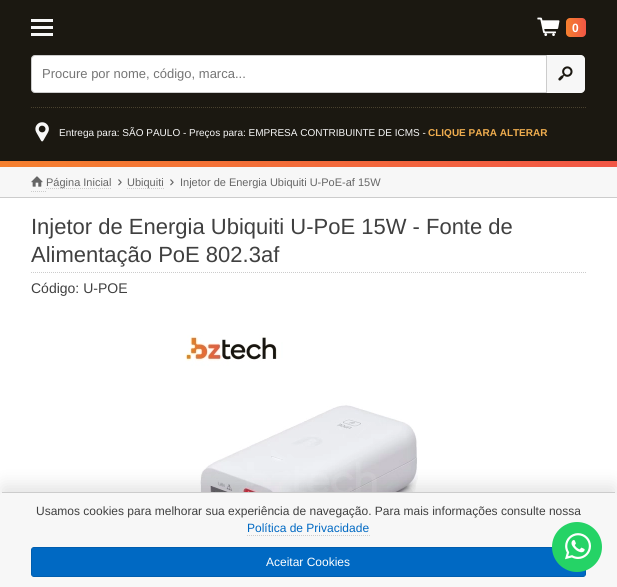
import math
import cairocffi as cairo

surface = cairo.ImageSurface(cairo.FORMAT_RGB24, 617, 587)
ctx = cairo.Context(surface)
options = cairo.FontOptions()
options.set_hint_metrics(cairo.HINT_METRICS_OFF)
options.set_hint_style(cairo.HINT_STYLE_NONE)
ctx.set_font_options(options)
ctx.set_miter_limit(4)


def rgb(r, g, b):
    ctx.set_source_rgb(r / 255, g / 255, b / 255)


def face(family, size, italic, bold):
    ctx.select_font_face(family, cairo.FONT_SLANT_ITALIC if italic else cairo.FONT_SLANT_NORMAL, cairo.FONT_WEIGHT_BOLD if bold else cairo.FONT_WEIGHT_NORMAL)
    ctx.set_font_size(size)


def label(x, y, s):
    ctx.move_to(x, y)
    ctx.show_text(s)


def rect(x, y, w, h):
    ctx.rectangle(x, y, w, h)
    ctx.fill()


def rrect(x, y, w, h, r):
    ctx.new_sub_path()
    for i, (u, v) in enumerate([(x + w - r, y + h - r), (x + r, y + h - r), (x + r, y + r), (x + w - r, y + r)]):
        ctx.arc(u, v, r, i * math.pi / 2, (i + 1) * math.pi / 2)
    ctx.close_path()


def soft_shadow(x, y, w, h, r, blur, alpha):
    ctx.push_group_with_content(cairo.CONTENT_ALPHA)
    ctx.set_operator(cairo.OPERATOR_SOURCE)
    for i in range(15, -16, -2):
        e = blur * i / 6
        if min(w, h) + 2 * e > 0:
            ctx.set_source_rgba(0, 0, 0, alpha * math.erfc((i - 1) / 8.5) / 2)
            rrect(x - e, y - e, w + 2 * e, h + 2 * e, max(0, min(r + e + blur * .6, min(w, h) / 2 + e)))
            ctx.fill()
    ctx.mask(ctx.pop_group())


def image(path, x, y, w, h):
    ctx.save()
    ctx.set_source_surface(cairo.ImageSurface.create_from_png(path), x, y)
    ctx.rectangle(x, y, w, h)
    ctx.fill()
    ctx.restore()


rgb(255, 255, 255)
ctx.paint()
rgb(27, 24, 17)
rect(0, 0, 617, 161)
rgb(247, 247, 247)
rect(31, 26, 22, 3)
rect(31, 19, 22, 3)
rect(31, 33, 22, 3)
image('image0.png', 537, 17, 23, 19)
gradient = cairo.LinearGradient(566, 28, 586, 28)
gradient.add_color_stop_rgba(0, 0.961, 0.502, 0.184, 1)
gradient.add_color_stop_rgba(1, 0.945, 0.337, 0.271, 1)
ctx.set_source(gradient)
rrect(566, 18, 20, 19, 4)
ctx.fill()
face('Liberation Sans', 12, 0, 1)
rgb(255, 255, 255)
label(572, 32, '0')
rgb(247, 247, 247)
ctx.new_path()
ctx.move_to(546, 55)
ctx.line_to(581, 55)
ctx.curve_to(583, 55, 585, 57, 585, 59)
ctx.line_to(585, 89)
ctx.curve_to(585, 91, 583, 93, 581, 93)
ctx.line_to(546, 93)
ctx.close_path()
ctx.fill()
rgb(255, 255, 255)
ctx.new_path()
ctx.move_to(35, 55.5)
ctx.line_to(546.5, 55.5)
ctx.line_to(546.5, 92.5)
ctx.line_to(35, 92.5)
ctx.curve_to(33, 92.5, 31.5, 91, 31.5, 89)
ctx.line_to(31.5, 59)
ctx.curve_to(31.5, 57, 33, 55.5, 35, 55.5)
ctx.close_path()
ctx.fill_preserve()
rgb(204, 204, 204)
ctx.set_line_width(1)
ctx.stroke()
face('Liberation Sans', 13, 0, 0)
rgb(117, 117, 117)
label(42, 78, 'Procure por nome, código, marca...')
image('image1.png', 558, 66, 15, 15)
ctx.new_path()
ctx.move_to(31, 107.5)
ctx.line_to(586, 107.5)
rgb(74, 66, 47)
ctx.set_dash([1, 1])
ctx.stroke()
image('image2.png', 35, 122, 14, 20)
face('Liberation Sans', 10, 0, 0)
rgb(247, 247, 247)
label(59, 136, 'Entrega para: SÃO PAULO - Preços para: EMPRESA CONTRIBUINTE DE ICMS -')
face('Liberation Sans', 10, 0, 1)
rgb(240, 173, 78)
label(428, 136, 'CLIQUE PARA ALTERAR')
gradient = cairo.LinearGradient(0, 164, 617, 164)
gradient.add_color_stop_rgba(0, 0.961, 0.502, 0.184, 1)
gradient.add_color_stop_rgba(1, 0.945, 0.337, 0.271, 1)
ctx.set_source(gradient)
rect(0, 161, 617, 6)
rgb(247, 247, 247)
rect(0, 167, 617, 30)
rgb(204, 204, 204)
rect(0, 197, 617, 1)
ctx.new_path()
ctx.move_to(31, 191.5)
ctx.line_to(46, 191.5)
ctx.stroke()
ctx.new_path()
ctx.move_to(46, 188.5)
ctx.line_to(112, 188.5)
ctx.stroke()
image('image3.png', 31, 176, 12, 11)
face('Liberation Sans', 11, 0, 0)
rgb(102, 102, 102)
label(46, 186, 'Página Inicial')
image('image4.png', 118, 179, 4, 7)
ctx.new_path()
ctx.move_to(127, 188.5)
ctx.line_to(164, 188.5)
rgb(204, 204, 204)
ctx.stroke()
rgb(102, 102, 102)
label(127, 186, 'Ubiquiti')
image('image4.png', 170, 179, 4, 7)
label(180, 186, 'Injetor de Energia Ubiquiti U-PoE-af 15W')
ctx.new_path()
ctx.move_to(31, 272.5)
ctx.line_to(586, 272.5)
rgb(204, 204, 204)
ctx.stroke()
face('Liberation Sans', 22, 0, 0)
rgb(64, 64, 64)
label(31, 234, 'Injetor de Energia Ubiquiti U-PoE 15W - Fonte de')
label(31, 262, 'Alimentação PoE 802.3af')
face('Liberation Sans', 14, 0, 0)
label(31, 293, 'Código: U-POE')
image('image5.png', 185, 335, 233, 157)
rgb(0, 0, 0)
soft_shadow(0, 484, 617, 95, 4, 8, 0.1)
rgb(247, 247, 247)
ctx.new_path()
ctx.move_to(4, 492)
ctx.line_to(613, 492)
ctx.curve_to(615, 492, 617, 494, 617, 496)
ctx.line_to(617, 587)
ctx.line_to(0, 587)
ctx.line_to(0, 496)
ctx.curve_to(0, 494, 2, 492, 4, 492)
ctx.close_path()
ctx.fill()
rgb(204, 204, 204)
rect(2, 492, 613, 1)
face('Liberation Sans', 12, 0, 0)
rgb(64, 64, 64)
label(36, 515, 'Usamos cookies para melhorar sua experiência de navegação. Para mais informações consulte nossa')
rgb(0, 105, 195)
label(247, 532, 'Política de Privacidade')
ctx.new_path()
ctx.move_to(247, 535.5)
ctx.line_to(370, 535.5)
rgb(204, 204, 204)
ctx.stroke()
rgb(0, 105, 195)
rrect(31.5, 547.5, 554, 29, 2.5)
ctx.fill_preserve()
rgb(0, 94, 175)
ctx.set_dash([])
ctx.stroke()
rgb(255, 255, 255)
label(266, 566, 'Aceitar Cookies')
rgb(37, 211, 102)
ctx.new_path()
ctx.arc(577, 547, 25, 0, 2 * math.pi)
ctx.fill()
image('image6.png', 565, 533, 26, 27)
surface.write_to_png('render.png')
